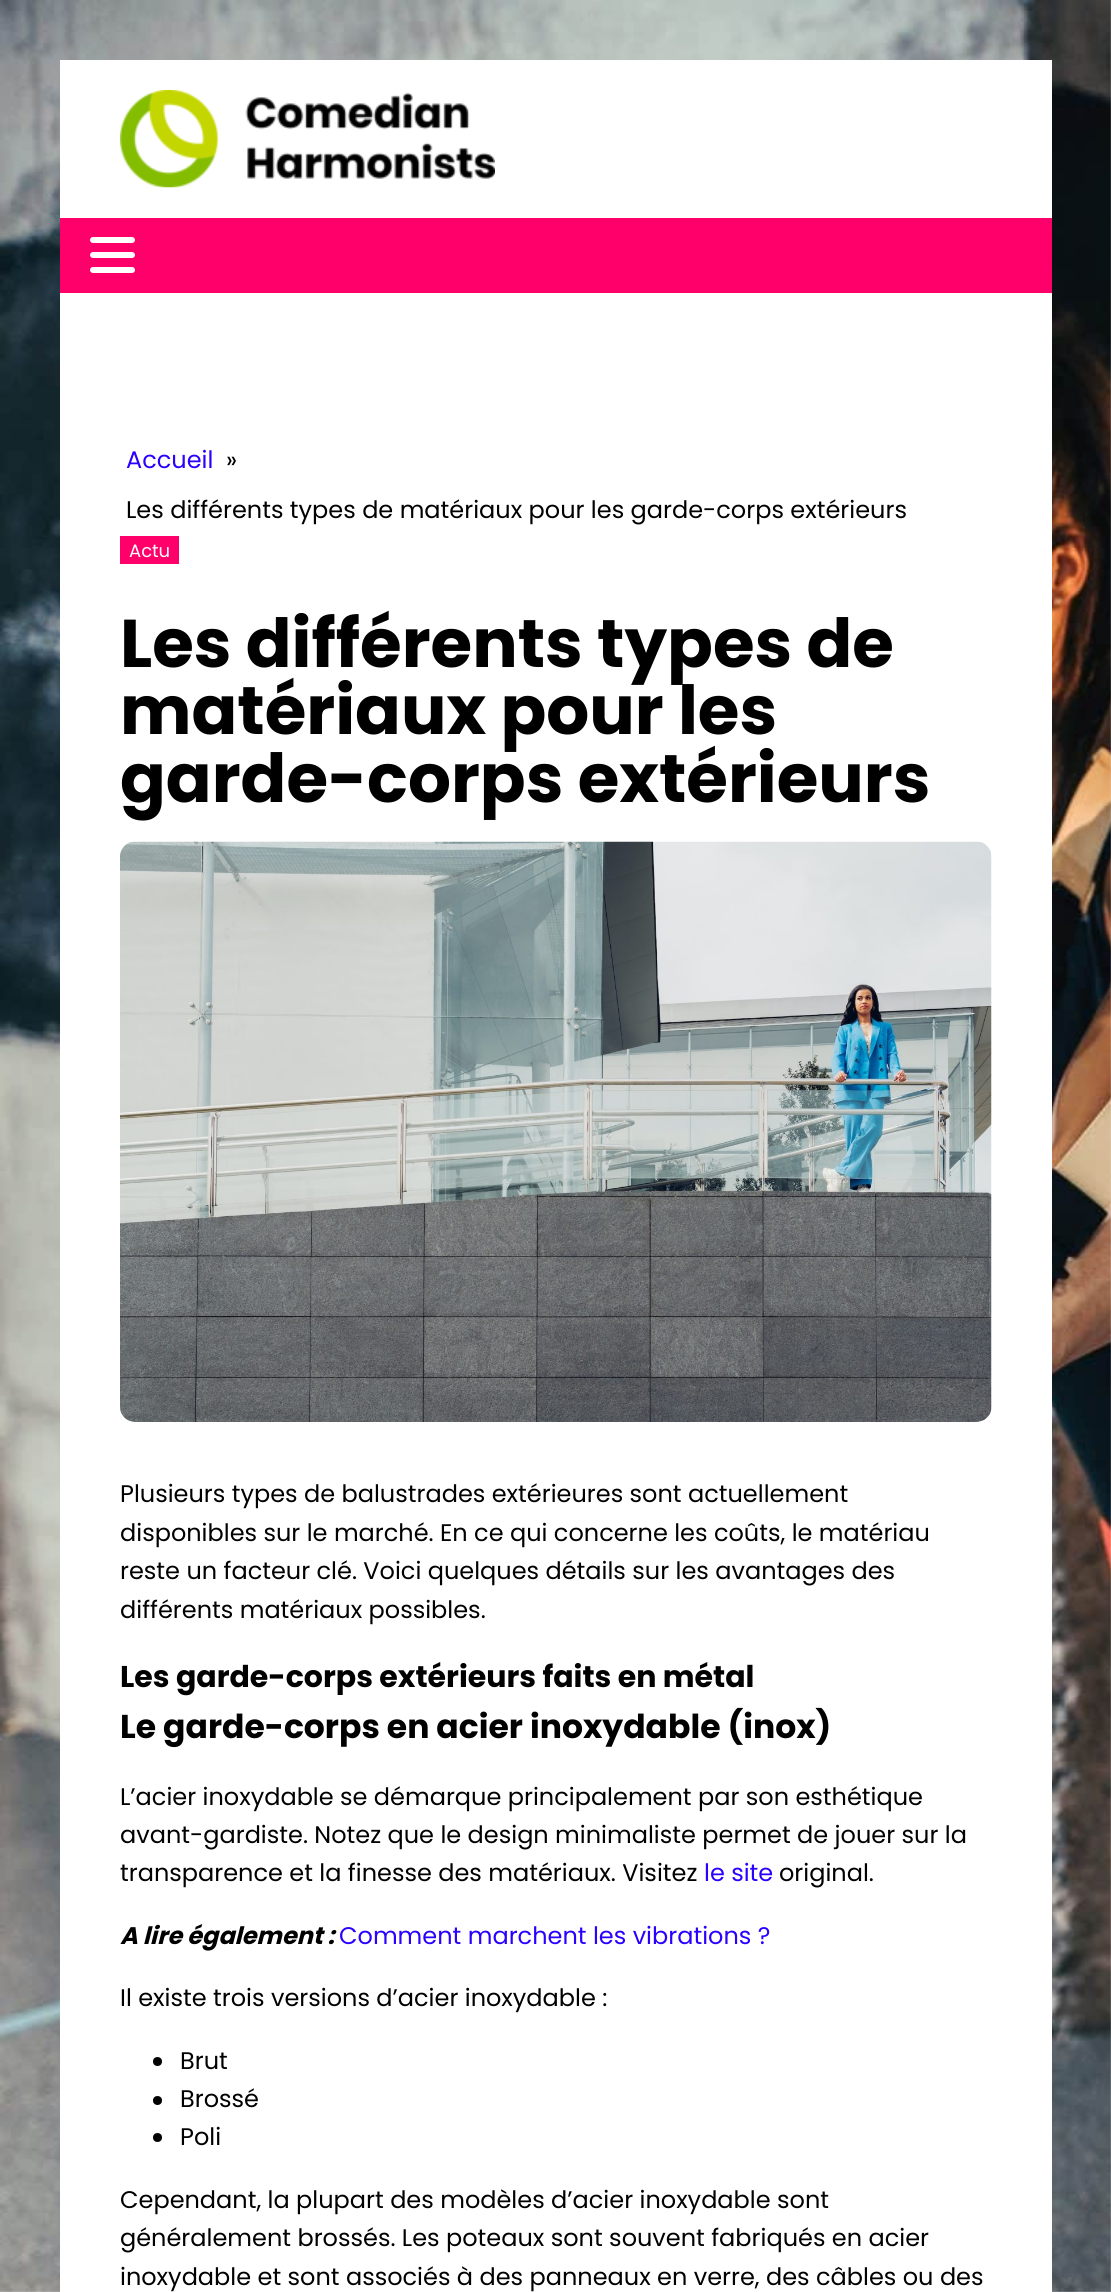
import math
import cairocffi as cairo

surface = cairo.ImageSurface(cairo.FORMAT_RGB24, 1111, 2292)
ctx = cairo.Context(surface)
options = cairo.FontOptions()
options.set_hint_metrics(cairo.HINT_METRICS_OFF)
options.set_hint_style(cairo.HINT_STYLE_NONE)
ctx.set_font_options(options)
ctx.set_miter_limit(4)


def rgb(r, g, b):
    ctx.set_source_rgb(r / 255, g / 255, b / 255)


def face(family, size, italic, bold):
    ctx.select_font_face(family, cairo.FONT_SLANT_ITALIC if italic else cairo.FONT_SLANT_NORMAL, cairo.FONT_WEIGHT_BOLD if bold else cairo.FONT_WEIGHT_NORMAL)
    ctx.set_font_size(size)


def label(x, y, s):
    ctx.move_to(x, y)
    ctx.show_text(s)


def rect(x, y, w, h):
    ctx.rectangle(x, y, w, h)
    ctx.fill()


def rrect(x, y, w, h, r):
    ctx.new_sub_path()
    for i, (u, v) in enumerate([(x + w - r, y + h - r), (x + r, y + h - r), (x + r, y + r), (x + w - r, y + r)]):
        ctx.arc(u, v, r, i * math.pi / 2, (i + 1) * math.pi / 2)
    ctx.close_path()


def image(path, x, y, w, h):
    ctx.save()
    ctx.set_source_surface(cairo.ImageSurface.create_from_png(path), x, y)
    ctx.rectangle(x, y, w, h)
    ctx.fill()
    ctx.restore()


rgb(255, 255, 255)
ctx.paint()
image('image0.png', 0, 0, 1111, 2292)
rgb(255, 255, 255)
rect(60, 60, 992, 2232)
image('image1.png', 120, 90, 375, 98)
rgb(255, 0, 107)
rect(60, 218, 992, 75)
rgb(255, 255, 255)
rrect(90, 237, 45, 6, 3)
ctx.fill()
rrect(90, 252, 45, 6, 3)
ctx.fill()
rrect(90, 267, 45, 6, 3)
ctx.fill()
face('Poppins', 24, 0, 0)
rgb(42, 0, 255)
label(126, 468, 'Accueil')
rgb(0, 0, 0)
label(226, 468, '»')
label(126, 518, 'Les différents types de matériaux pour les garde-corps extérieurs')
rgb(255, 0, 107)
rect(120, 536, 59, 28)
face('Poppins', 18, 0, 0)
rgb(255, 255, 255)
label(129, 557, 'Actu')
face('Poppins', 67.5, 0, 1)
rgb(0, 0, 0)
label(120, 667, 'Les différents types de')
label(120, 734, 'matériaux pour les')
label(120, 802, 'garde-corps extérieurs')
image('image2.png', 120, 841, 872, 581)
face('Poppins', 24, 0, 0)
label(120, 1502, 'Plusieurs types de balustrades extérieures sont actuellement')
label(120, 1541, 'disponibles sur le marché. En ce qui concerne les coûts, le matériau')
label(120, 1579, 'reste un facteur clé. Voici quelques détails sur les avantages des')
label(120, 1618, 'différents matériaux possibles.')
face('Poppins', 30, 0, 1)
label(120, 1687, 'Les garde-corps extérieurs faits en métal')
face('Poppins', 33, 0, 1)
label(120, 1738, 'Le garde-corps en acier inoxydable (inox)')
face('Poppins', 24, 0, 0)
label(120, 1805, 'L’acier inoxydable se démarque principalement par son esthétique')
label(120, 1843, 'avant-gardiste. Notez que le design minimaliste permet de jouer sur la')
label(120, 1881, 'transparence et la finesse des matériaux. Visitez')
rgb(42, 0, 255)
label(704, 1881, 'le site')
rgb(0, 0, 0)
label(779, 1881, 'original.')
face('Poppins', 24, 1, 1)
label(120, 1944, 'A lire également :')
face('Poppins', 24, 0, 0)
rgb(42, 0, 255)
label(339, 1944, 'Comment marchent les vibrations ?')
rgb(0, 0, 0)
label(120, 2006, 'Il existe trois versions d’acier inoxydable :')
ctx.new_path()
ctx.arc(157.5, 2061.5, 4.5, 0, 2 * math.pi)
ctx.fill()
label(180, 2069, 'Brut')
ctx.new_path()
ctx.arc(157.5, 2100.5, 4.5, 0, 2 * math.pi)
ctx.fill()
label(180, 2107, 'Brossé')
ctx.new_path()
ctx.arc(157.5, 2137.5, 4.5, 0, 2 * math.pi)
ctx.fill()
label(180, 2145, 'Poli')
label(120, 2208, 'Cependant, la plupart des modèles d’acier inoxydable sont')
label(120, 2246, 'généralement brossés. Les poteaux sont souvent fabriqués en acier')
label(120, 2285, 'inoxydable et sont associés à des panneaux en verre, des câbles ou des')
surface.write_to_png('render.png')
